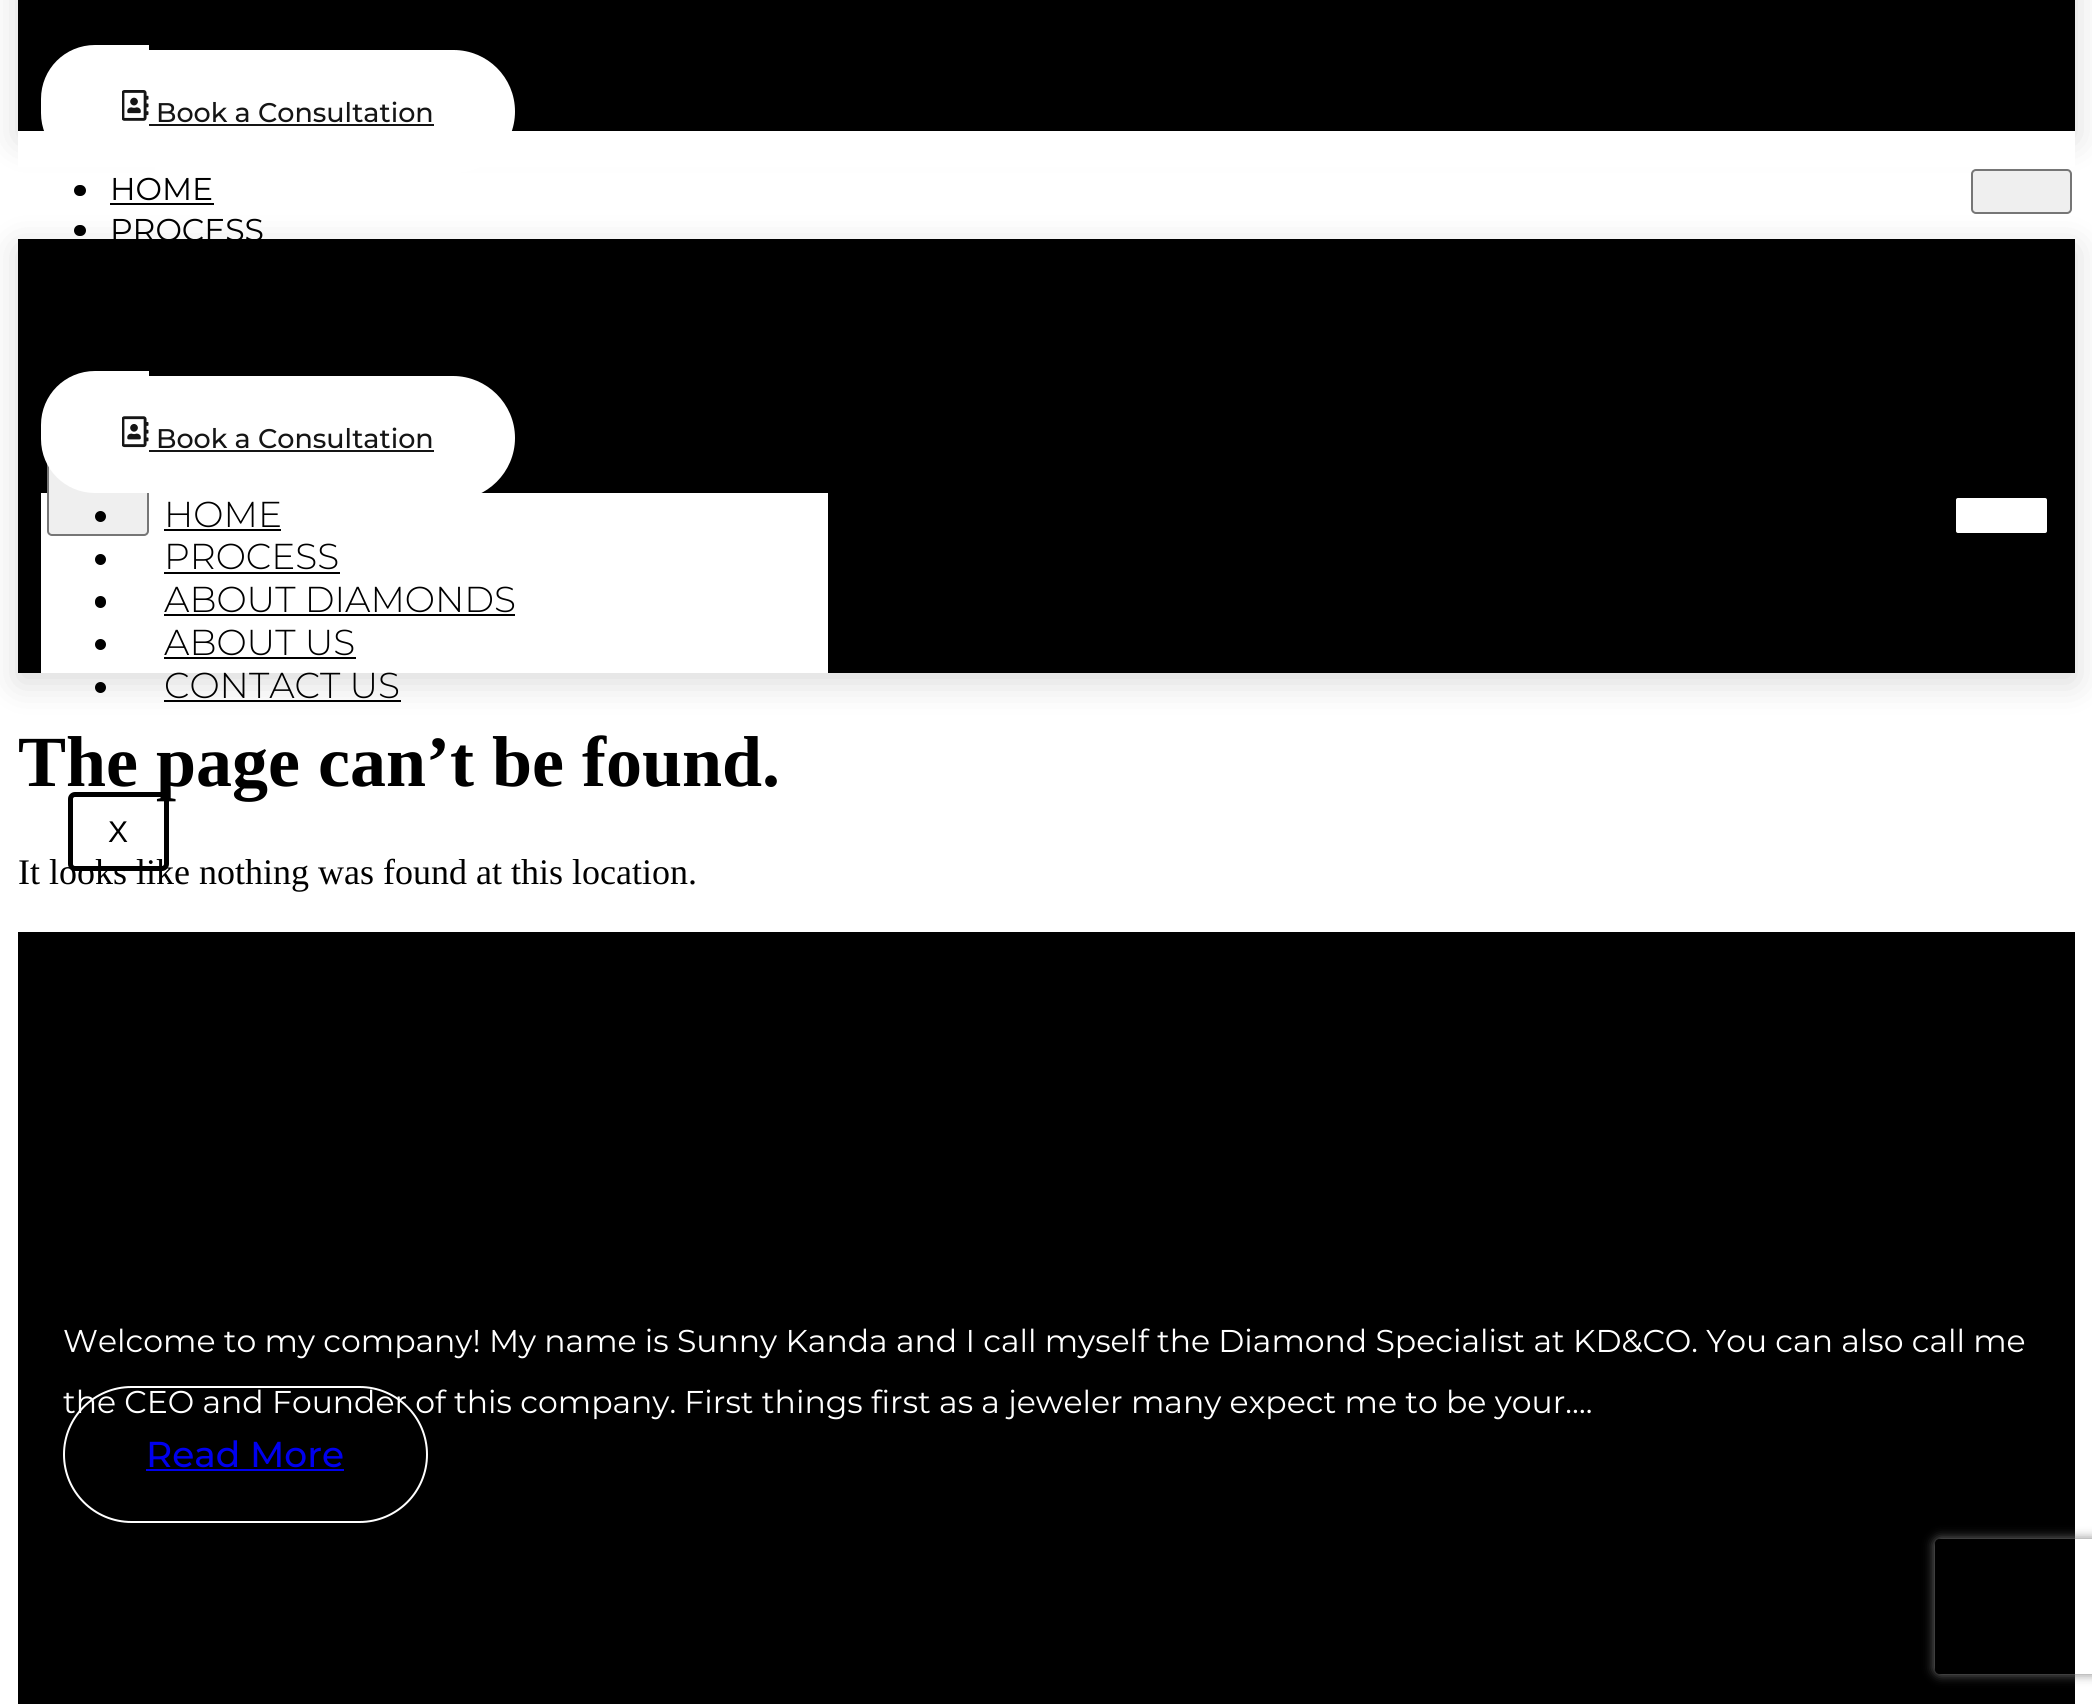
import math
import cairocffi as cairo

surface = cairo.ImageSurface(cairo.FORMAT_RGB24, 2092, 1704)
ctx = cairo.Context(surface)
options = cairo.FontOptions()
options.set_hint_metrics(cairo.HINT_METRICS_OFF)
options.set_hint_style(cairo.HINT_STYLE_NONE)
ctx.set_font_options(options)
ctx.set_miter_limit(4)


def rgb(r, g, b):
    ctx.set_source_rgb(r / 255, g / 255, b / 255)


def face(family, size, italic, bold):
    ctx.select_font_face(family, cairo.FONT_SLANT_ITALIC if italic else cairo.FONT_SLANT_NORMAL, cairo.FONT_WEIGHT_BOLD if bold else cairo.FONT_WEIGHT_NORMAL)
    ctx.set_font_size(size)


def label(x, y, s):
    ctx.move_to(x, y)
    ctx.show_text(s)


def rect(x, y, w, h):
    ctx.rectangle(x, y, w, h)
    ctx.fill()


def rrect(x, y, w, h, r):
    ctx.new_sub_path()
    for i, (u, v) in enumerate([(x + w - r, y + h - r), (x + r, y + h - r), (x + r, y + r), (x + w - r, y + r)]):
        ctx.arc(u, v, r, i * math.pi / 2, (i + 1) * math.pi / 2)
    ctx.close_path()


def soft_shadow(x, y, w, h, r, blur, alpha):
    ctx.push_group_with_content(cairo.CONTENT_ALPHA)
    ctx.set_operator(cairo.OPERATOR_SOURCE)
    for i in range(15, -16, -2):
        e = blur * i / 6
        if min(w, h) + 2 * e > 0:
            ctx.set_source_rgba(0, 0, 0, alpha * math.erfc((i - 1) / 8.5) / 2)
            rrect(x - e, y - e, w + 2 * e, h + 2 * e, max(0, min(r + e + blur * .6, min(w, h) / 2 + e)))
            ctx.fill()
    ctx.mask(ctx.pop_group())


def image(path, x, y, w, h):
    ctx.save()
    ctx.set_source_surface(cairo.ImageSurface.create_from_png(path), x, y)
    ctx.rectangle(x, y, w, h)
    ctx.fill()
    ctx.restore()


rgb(255, 255, 255)
ctx.paint()
rgb(0, 0, 0)
soft_shadow(18, -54, 2057, 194, 0, 18, 0.15)
rgb(0, 0, 0)
rect(18, 0, 2057, 131)
rgb(255, 255, 255)
rect(18, 131, 2057, 36)
ctx.new_path()
ctx.move_to(95, 45)
ctx.line_to(149, 45)
ctx.line_to(149, 167)
ctx.line_to(95, 167)
ctx.curve_to(65, 167, 41, 143, 41, 113)
ctx.line_to(41, 99)
ctx.curve_to(41, 69, 65, 45, 95, 45)
ctx.close_path()
ctx.fill()
image('image0.png', 122, 90, 27, 31)
ctx.new_path()
ctx.move_to(155, 50)
ctx.line_to(453.5, 50)
ctx.curve_to(487.5, 50, 515, 77.5, 515, 111.5)
ctx.curve_to(515, 145.5, 487.5, 173, 453.5, 173)
ctx.line_to(155, 173)
ctx.close_path()
ctx.fill()
face('Montserrat Medium', 27, 0, 0)
rgb(21, 21, 21)
label(156, 122, 'Book a Consultation')
rgb(255, 255, 255)
rect(149, 50, 6, 81)
rgb(21, 21, 21)
rect(149, 124, 285, 2)
rgb(0, 0, 0)
soft_shadow(18, 248, 2057, 434, 0, 18, 0.15)
rgb(0, 0, 0)
rrect(74, 185, 12, 11, 5.5)
ctx.fill()
face('Montserrat', 31.5, 0, 0)
label(110, 200, 'HOME')
rect(110, 203, 104, 2)
rrect(74, 225, 12, 11, 5.5)
ctx.fill()
rect(18, 239, 2057, 434)
label(110, 241, 'PROCESS')
rgb(255, 255, 255)
rect(41, 493, 787, 180)
rgb(239, 239, 239)
rrect(48, 458, 100, 77, 4)
ctx.fill_preserve()
rgb(118, 118, 118)
ctx.stroke()
rgb(239, 239, 239)
rrect(1972, 170, 99, 43, 4)
ctx.fill_preserve()
rgb(118, 118, 118)
ctx.stroke()
rgb(255, 255, 255)
ctx.new_path()
ctx.move_to(95, 371)
ctx.line_to(149, 371)
ctx.line_to(149, 493)
ctx.line_to(95, 493)
ctx.curve_to(65, 493, 41, 469, 41, 439)
ctx.line_to(41, 425)
ctx.curve_to(41, 395, 65, 371, 95, 371)
ctx.close_path()
ctx.fill()
image('image1.png', 122, 416, 27, 32)
ctx.new_path()
ctx.move_to(155, 376)
ctx.line_to(453, 376)
ctx.curve_to(487, 376, 515, 404, 515, 438)
ctx.curve_to(515, 472, 487, 500, 453, 500)
ctx.line_to(155, 500)
ctx.close_path()
ctx.fill()
face('Montserrat Medium', 27, 0, 0)
rgb(21, 21, 21)
label(156, 448, 'Book a Consultation')
rgb(255, 255, 255)
rect(149, 376, 6, 124)
rgb(21, 21, 21)
rect(149, 450, 285, 2)
rgb(0, 0, 0)
ctx.new_path()
ctx.arc(100.5, 516.5, 5.5, 0, 2 * math.pi)
ctx.fill()
face('Montserrat Light', 36, 0, 0)
label(164, 527, 'HOME')
rect(164, 529, 117, 2)
ctx.new_path()
ctx.arc(100.5, 559.5, 5.5, 0, 2 * math.pi)
ctx.fill()
label(164, 569, 'PROCESS')
rect(164, 572, 176, 2)
rrect(95, 596, 11, 12, 5.5)
ctx.fill()
label(164, 612, 'ABOUT DIAMONDS')
rect(164, 614, 351, 2)
ctx.new_path()
ctx.arc(100.5, 644.5, 5.5, 0, 2 * math.pi)
ctx.fill()
label(164, 655, 'ABOUT US')
rect(164, 657, 192, 2)
ctx.new_path()
ctx.arc(100.5, 687.5, 5.5, 0, 2 * math.pi)
ctx.fill()
label(164, 698, 'CONTACT US')
rect(164, 700, 237, 2)
rrect(70.5, 794.5, 96, 74, 4.5)
ctx.set_line_width(5)
ctx.stroke()
face('Liberation Sans', 30, 0, 0)
label(108, 842, 'X')
rgb(255, 255, 255)
rrect(1953.5, 495.5, 96, 40, 4.5)
ctx.fill_preserve()
rgb(0, 0, 0)
ctx.stroke()
face('Liberation Serif', 72, 0, 1)
label(18, 786, 'The page can’t be found.')
face('Liberation Serif', 36, 0, 0)
label(18, 884, 'It looks like nothing was found at this location.')
rect(18, 932, 2057, 772)
face('Montserrat', 31.5, 0, 0)
rgb(255, 255, 255)
label(63, 1352, 'Welcome to my company! My name is Sunny Kanda and I call myself the Diamond Specialist at KD&CO. You can also call me')
label(63, 1413, 'the CEO and Founder of this company. First things first as a jeweler many expect me to be your….')
rrect(64, 1387, 363, 135, 67.5)
ctx.set_line_width(2)
ctx.stroke()
face('Montserrat Medium', 36, 0, 0)
rgb(0, 0, 238)
label(146, 1467, 'Read More')
rect(146, 1469, 198, 2)
ctx.save()
ctx.set_fill_rule(cairo.FILL_RULE_EVEN_ODD)
ctx.new_path()
ctx.move_to(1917, 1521)
ctx.line_to(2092, 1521)
ctx.line_to(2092, 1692)
ctx.line_to(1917, 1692)
ctx.close_path()
ctx.move_to(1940, 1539)
ctx.line_to(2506, 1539)
ctx.curve_to(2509, 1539, 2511, 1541, 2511, 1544)
ctx.line_to(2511, 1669)
ctx.curve_to(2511, 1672, 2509, 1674, 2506, 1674)
ctx.line_to(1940, 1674)
ctx.curve_to(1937, 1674, 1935, 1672, 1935, 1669)
ctx.line_to(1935, 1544)
ctx.curve_to(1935, 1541, 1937, 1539, 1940, 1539)
ctx.close_path()
ctx.clip()
rgb(128, 128, 128)
soft_shadow(1935, 1539, 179, 135, 5, 5.5, 1)
ctx.restore()
surface.write_to_png('render.png')
